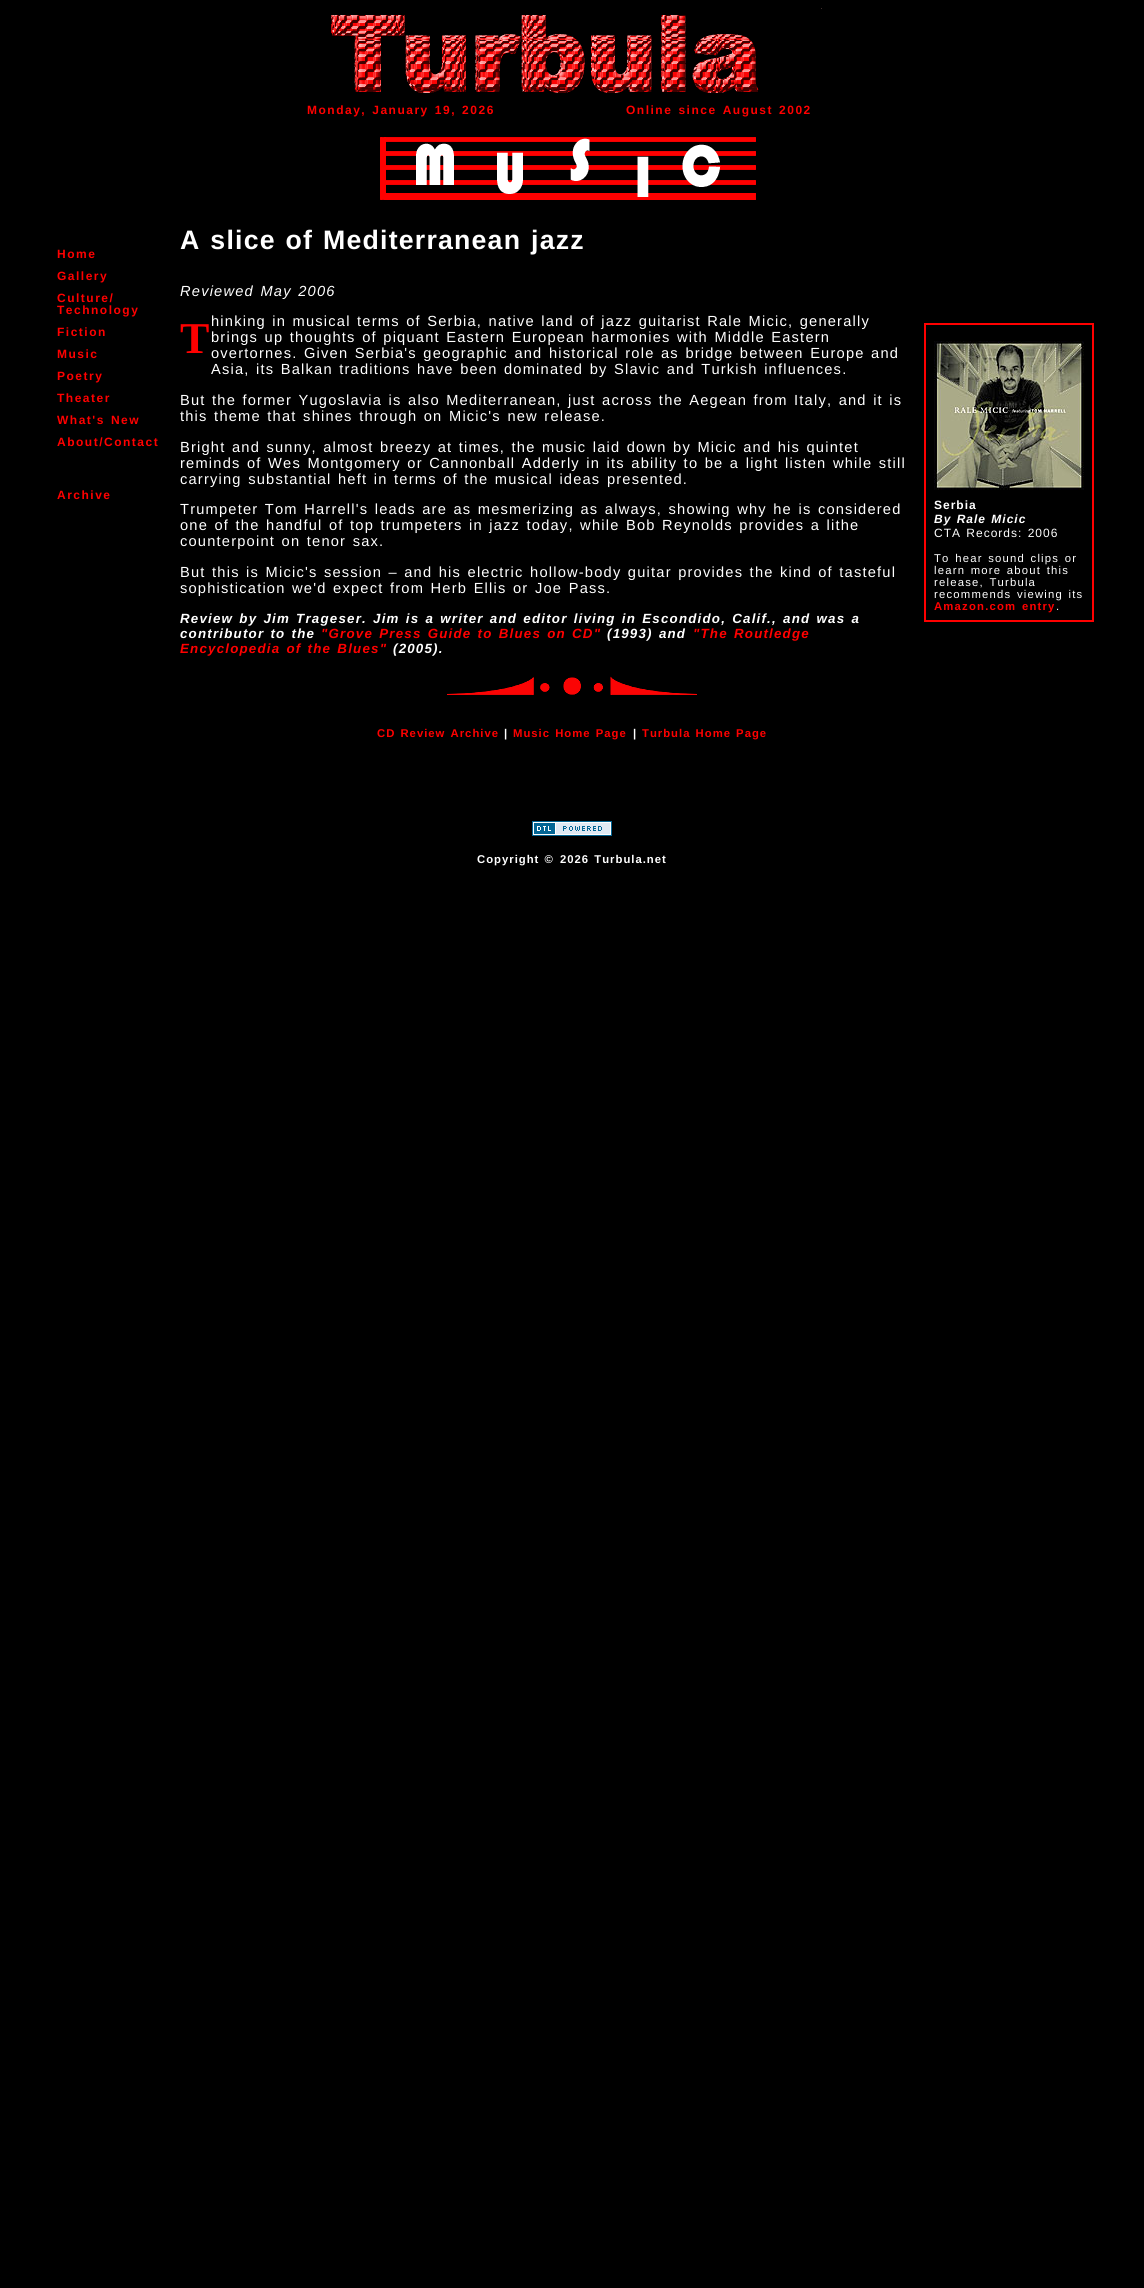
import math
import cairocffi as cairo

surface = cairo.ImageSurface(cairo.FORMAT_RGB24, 1144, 2288)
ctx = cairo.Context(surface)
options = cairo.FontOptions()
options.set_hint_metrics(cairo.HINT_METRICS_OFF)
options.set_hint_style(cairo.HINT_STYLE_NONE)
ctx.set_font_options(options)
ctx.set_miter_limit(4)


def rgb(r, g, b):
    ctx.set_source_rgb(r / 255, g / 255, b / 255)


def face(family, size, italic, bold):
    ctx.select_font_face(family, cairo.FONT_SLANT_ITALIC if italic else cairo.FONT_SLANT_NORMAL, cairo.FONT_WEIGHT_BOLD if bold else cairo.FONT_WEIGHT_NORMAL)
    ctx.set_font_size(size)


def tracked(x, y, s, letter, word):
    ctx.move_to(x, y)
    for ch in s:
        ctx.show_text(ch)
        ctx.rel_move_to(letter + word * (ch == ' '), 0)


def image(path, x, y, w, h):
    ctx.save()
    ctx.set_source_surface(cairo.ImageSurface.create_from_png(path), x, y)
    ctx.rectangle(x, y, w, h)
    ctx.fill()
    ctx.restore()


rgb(0, 0, 0)
ctx.paint()
image('image0.png', 331, 8, 491, 85)
face('Liberation Sans', 12, 0, 1)
rgb(255, 0, 0)
tracked(307, 114, 'Monday, January 19, 2026', 1.5, 1.25)
tracked(626, 114, 'Online since August 2002', 1.5, 1.25)
image('image1.png', 380, 137, 376, 63)
tracked(57, 258, 'Home', 1.5, 0)
tracked(57, 280, 'Gallery', 1.5, 0)
tracked(57, 302, 'Culture/', 1.5, 0)
tracked(57, 314, 'Technology', 1.5, 0)
tracked(57, 336, 'Fiction', 1.5, 0)
tracked(57, 358, 'Music', 1.5, 0)
tracked(57, 380, 'Poetry', 1.5, 0)
tracked(57, 402, 'Theater', 1.5, 0)
tracked(57, 424, 'What\'s New', 1.5, 1.25)
tracked(57, 446, 'About/Contact', 1.5, 0)
tracked(57, 499, 'Archive', 1.5, 0)
face('Liberation Sans', 26.7, 0, 1)
rgb(255, 255, 255)
tracked(180, 249, 'A slice of Mediterranean jazz', 1.2, 1.25)
face('Liberation Sans', 14.65, 1, 0)
tracked(180, 296, 'Reviewed May 2006', 1.2, 1.25)
face('Liberation Sans', 14.65, 0, 0)
tracked(211, 326, 'hinking in musical terms of Serbia, native land of jazz guitarist Rale Micic, generally', 1.2, 1.2)
face('Liberation Serif', 44, 0, 1)
rgb(255, 0, 0)
tracked(180, 353, 'T', 1.2, 0)
face('Liberation Sans', 14.65, 0, 0)
rgb(255, 255, 255)
tracked(211, 342, 'brings up thoughts of piquant Eastern European harmonies with Middle Eastern', 1.2, 1.25)
tracked(211, 358, 'overtornes. Given Serbia\'s geographic and historical role as bridge between Europe and', 1.2, 1.25)
tracked(211, 374, 'Asia, its Balkan traditions have been dominated by Slavic and Turkish influences.', 1.2, 1.2)
tracked(180, 405, 'But the former Yugoslavia is also Mediterranean, just across the Aegean from Italy, and it is', 1.2, 1.2)
tracked(180, 421, 'this theme that shines through on Micic\'s new release.', 1.2, 1.25)
tracked(180, 452, 'Bright and sunny, almost breezy at times, the music laid down by Micic and his quintet', 1.2, 1.2)
tracked(180, 468, 'reminds of Wes Montgomery or Cannonball Adderly in its ability to be a light listen while still', 1.2, 1.2)
tracked(180, 484, 'carrying substantial heft in terms of the musical ideas presented.', 1.2, 1.25)
tracked(180, 514, 'Trumpeter Tom Harrell\'s leads are as mesmerizing as always, showing why he is considered', 1.2, 1.2)
tracked(180, 530, 'one of the handful of top trumpeters in jazz today, while Bob Reynolds provides a lithe', 1.2, 1.2)
tracked(180, 546, 'counterpoint on tenor sax.', 1.2, 1.25)
ctx.rectangle(924.5, 323.5, 169, 298)
rgb(255, 0, 0)
ctx.set_line_width(1)
ctx.stroke()
ctx.rectangle(925.5, 324.5, 167, 296)
ctx.stroke()
image('image2.png', 934, 341, 150, 149)
face('Liberation Sans', 12, 0, 1)
rgb(255, 255, 255)
tracked(934, 509, 'Serbia', 1, 0)
face('Liberation Sans', 12, 1, 1)
tracked(934, 523, 'By Rale Micic', 1, 1)
face('Liberation Sans', 12, 0, 0)
tracked(934, 537, 'CTA Records: 2006', 1, 1)
face('Liberation Sans', 11.3, 0, 0)
tracked(934, 562, 'To hear sound clips or', 1.2, 1.25)
tracked(934, 574, 'learn more about this', 1.2, 1.25)
tracked(934, 586, 'release, Turbula', 1.2, 1.25)
tracked(934, 598, 'recommends viewing its', 1.2, 1.25)
face('Liberation Sans', 11.3, 0, 1)
rgb(255, 0, 0)
tracked(934, 610, 'Amazon.com entry', 1.2, 1.25)
face('Liberation Sans', 11.3, 0, 0)
rgb(255, 255, 255)
tracked(1056, 610, '.', 1.2, 0)
face('Liberation Sans', 14.65, 0, 0)
tracked(180, 577, 'But this is Micic\'s session – and his electric hollow-body guitar provides the kind of tasteful', 1.2, 1.2)
tracked(180, 593, 'sophistication we\'d expect from Herb Ellis or Joe Pass.', 1.2, 1.25)
face('Liberation Sans', 13.33, 1, 1)
tracked(180, 623, 'Review by Jim Trageser. Jim is a writer and editor living in Escondido, Calif., and was a', 1.2, 1.25)
tracked(180, 638, 'contributor to the', 1.2, 1.25)
rgb(255, 0, 0)
tracked(321, 638, '"Grove Press Guide to Blues on CD"', 1.2, 1.25)
rgb(255, 255, 255)
tracked(607, 638, '(1993) and', 1.2, 1.25)
rgb(255, 0, 0)
tracked(693, 638, '"The Routledge', 1.2, 1.25)
tracked(180, 653, 'Encyclopedia of the Blues"', 1.2, 1.25)
rgb(255, 255, 255)
tracked(393, 653, '(2005).', 1.2, 0)
image('image3.png', 447, 676, 250, 19)
face('Liberation Sans', 11.3, 0, 1)
rgb(255, 0, 0)
tracked(377, 737, 'CD Review Archive', 1, 1)
rgb(255, 255, 255)
tracked(504, 737, '|', 1, 0)
rgb(255, 0, 0)
tracked(513, 737, 'Music Home Page', 1, 1)
rgb(255, 255, 255)
tracked(633, 737, '|', 1, 0)
rgb(255, 0, 0)
tracked(642, 737, 'Turbula Home Page', 1, 1)
image('image4.png', 532, 821, 80, 15)
rgb(255, 255, 255)
tracked(477, 863, 'Copyright ©', 1, 1)
tracked(560, 863, '2026 Turbula.net', 1, 1)
surface.write_to_png('render.png')
